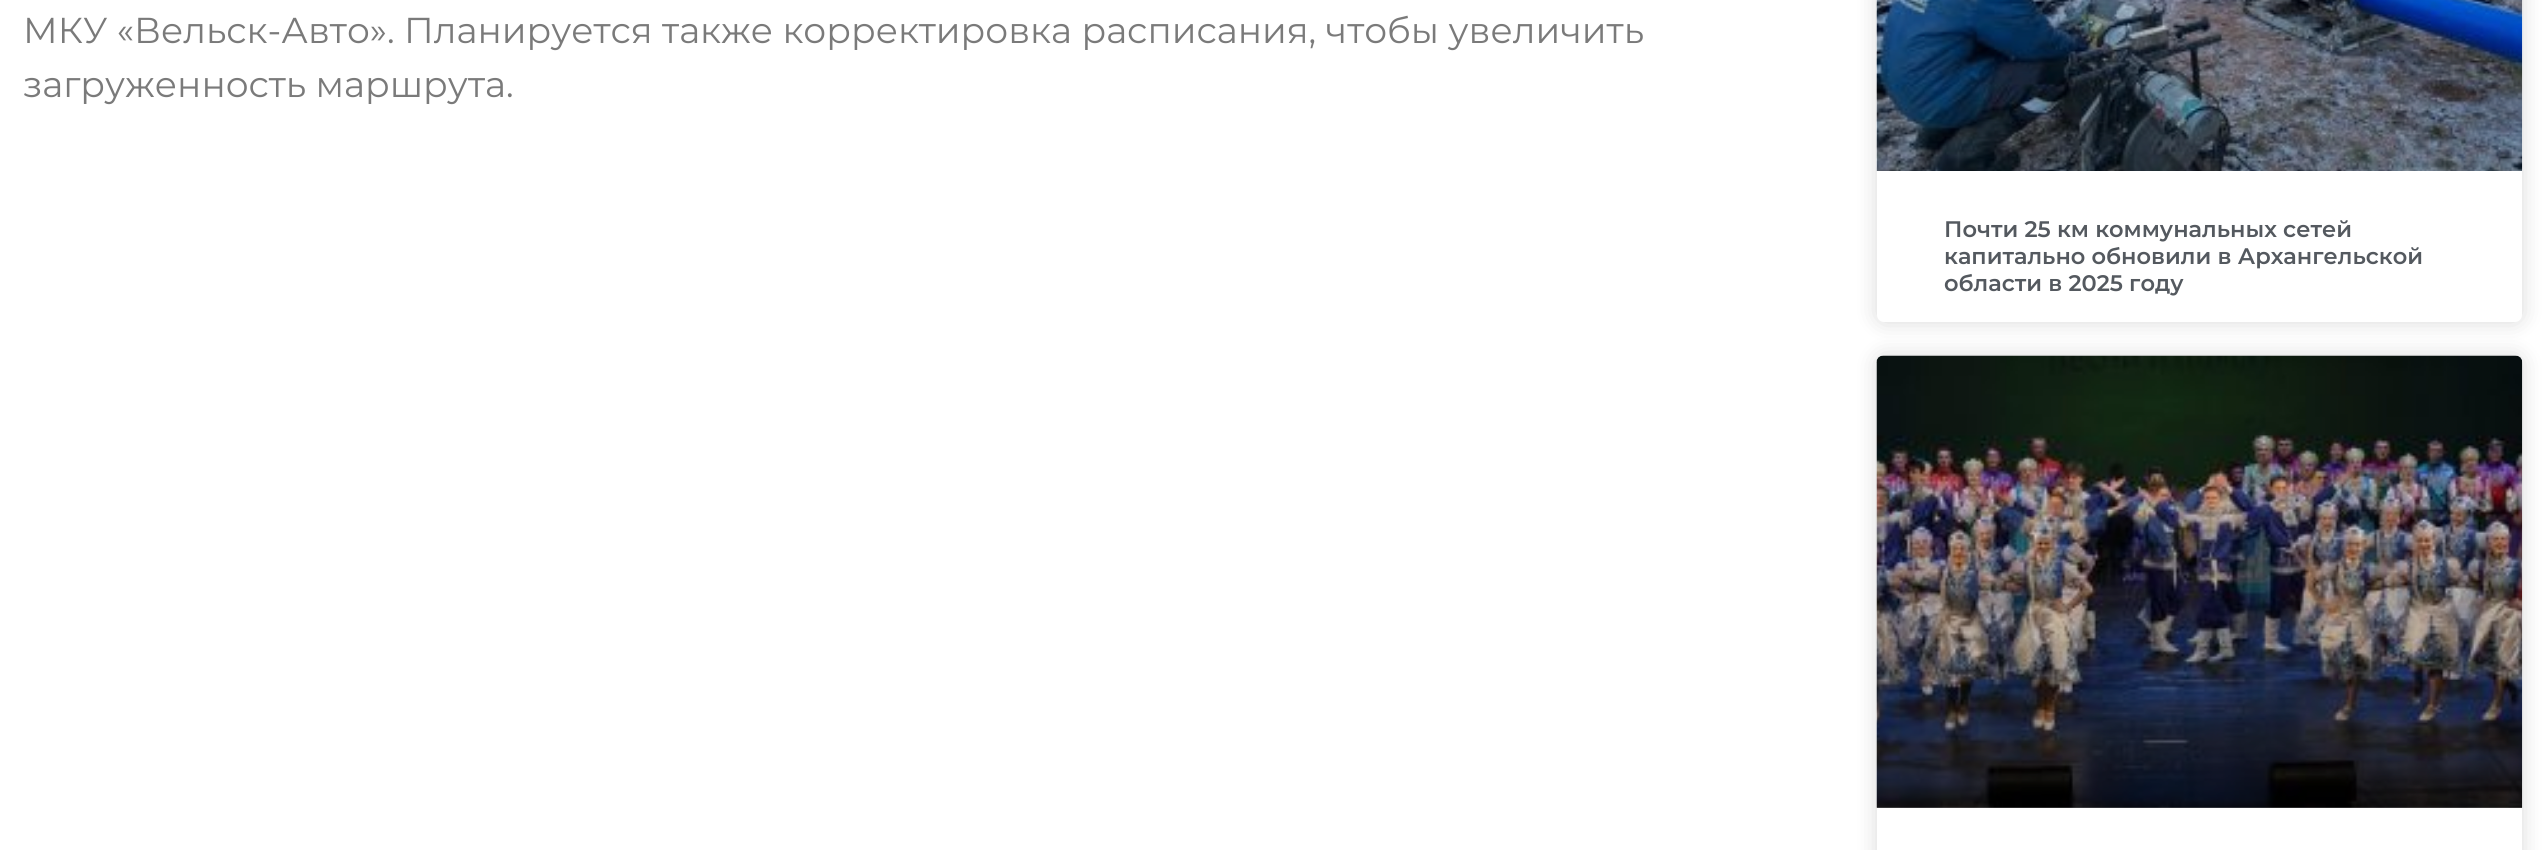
import math
import cairocffi as cairo

surface = cairo.ImageSurface(cairo.FORMAT_RGB24, 2547, 850)
ctx = cairo.Context(surface)
options = cairo.FontOptions()
options.set_hint_metrics(cairo.HINT_METRICS_OFF)
options.set_hint_style(cairo.HINT_STYLE_NONE)
ctx.set_font_options(options)
ctx.set_miter_limit(4)


def rgb(r, g, b):
    ctx.set_source_rgb(r / 255, g / 255, b / 255)


def face(family, size, italic, bold):
    ctx.select_font_face(family, cairo.FONT_SLANT_ITALIC if italic else cairo.FONT_SLANT_NORMAL, cairo.FONT_WEIGHT_BOLD if bold else cairo.FONT_WEIGHT_NORMAL)
    ctx.set_font_size(size)


def label(x, y, s):
    ctx.move_to(x, y)
    ctx.show_text(s)


def rect(x, y, w, h):
    ctx.rectangle(x, y, w, h)
    ctx.fill()


def rrect(x, y, w, h, r):
    ctx.new_sub_path()
    for i, (u, v) in enumerate([(x + w - r, y + h - r), (x + r, y + h - r), (x + r, y + r), (x + w - r, y + r)]):
        ctx.arc(u, v, r, i * math.pi / 2, (i + 1) * math.pi / 2)
    ctx.close_path()


def soft_shadow(x, y, w, h, r, blur, alpha):
    ctx.push_group_with_content(cairo.CONTENT_ALPHA)
    ctx.set_operator(cairo.OPERATOR_SOURCE)
    for i in range(15, -16, -2):
        e = blur * i / 6
        if min(w, h) + 2 * e > 0:
            ctx.set_source_rgba(0, 0, 0, alpha * math.erfc((i - 1) / 8.5) / 2)
            rrect(x - e, y - e, w + 2 * e, h + 2 * e, max(0, min(r + e + blur * .6, min(w, h) / 2 + e)))
            ctx.fill()
    ctx.mask(ctx.pop_group())


def image(path, x, y, w, h):
    ctx.save()
    ctx.set_source_surface(cairo.ImageSurface.create_from_png(path), x, y)
    ctx.rectangle(x, y, w, h)
    ctx.fill()
    ctx.restore()


rgb(255, 255, 255)
ctx.paint()
face('Montserrat', 36, 0, 0)
rgb(122, 122, 122)
label(23, 43, 'МКУ «Вельск-Авто». Планируется также корректировка расписания, чтобы увеличить')
label(23, 97, 'загруженность маршрута.')
rgb(0, 0, 0)
soft_shadow(1877, -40, 645, 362, 7, 11, 0.15)
rgb(255, 255, 255)
rrect(1877, -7, 645, 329, 7)
ctx.fill()
image('image0.png', 1876, 0, 647, 171)
face('Montserrat SemiBold', 22.5, 0, 0)
rgb(84, 89, 95)
label(1944, 237, 'Почти 25 км коммунальных сетей')
label(1944, 264, 'капитально обновили в Архангельской')
label(1944, 291, 'области в 2025 году')
ctx.save()
ctx.set_fill_rule(cairo.FILL_RULE_EVEN_ODD)
ctx.new_path()
ctx.move_to(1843, 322)
ctx.line_to(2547, 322)
ctx.line_to(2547, 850)
ctx.line_to(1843, 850)
ctx.close_path()
ctx.move_to(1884, 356)
ctx.line_to(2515, 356)
ctx.curve_to(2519, 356, 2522, 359, 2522, 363)
ctx.line_to(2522, 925)
ctx.curve_to(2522, 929, 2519, 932, 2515, 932)
ctx.line_to(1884, 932)
ctx.curve_to(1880, 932, 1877, 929, 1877, 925)
ctx.line_to(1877, 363)
ctx.curve_to(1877, 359, 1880, 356, 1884, 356)
ctx.close_path()
ctx.clip()
rgb(0, 0, 0)
soft_shadow(1877, 356, 645, 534, 7, 11, 0.15)
ctx.restore()
image('image1.png', 1876, 355, 647, 453)
gradient = cairo.LinearGradient(2199, 808, 2199, 356)
gradient.add_color_stop_rgba(0, 0, 0, 0, 0.35)
gradient.add_color_stop_rgba(0.75, 0, 0, 0, 0)
ctx.set_source(gradient)
rect(1877, 490, 645, 318)
surface.write_to_png('render.png')
